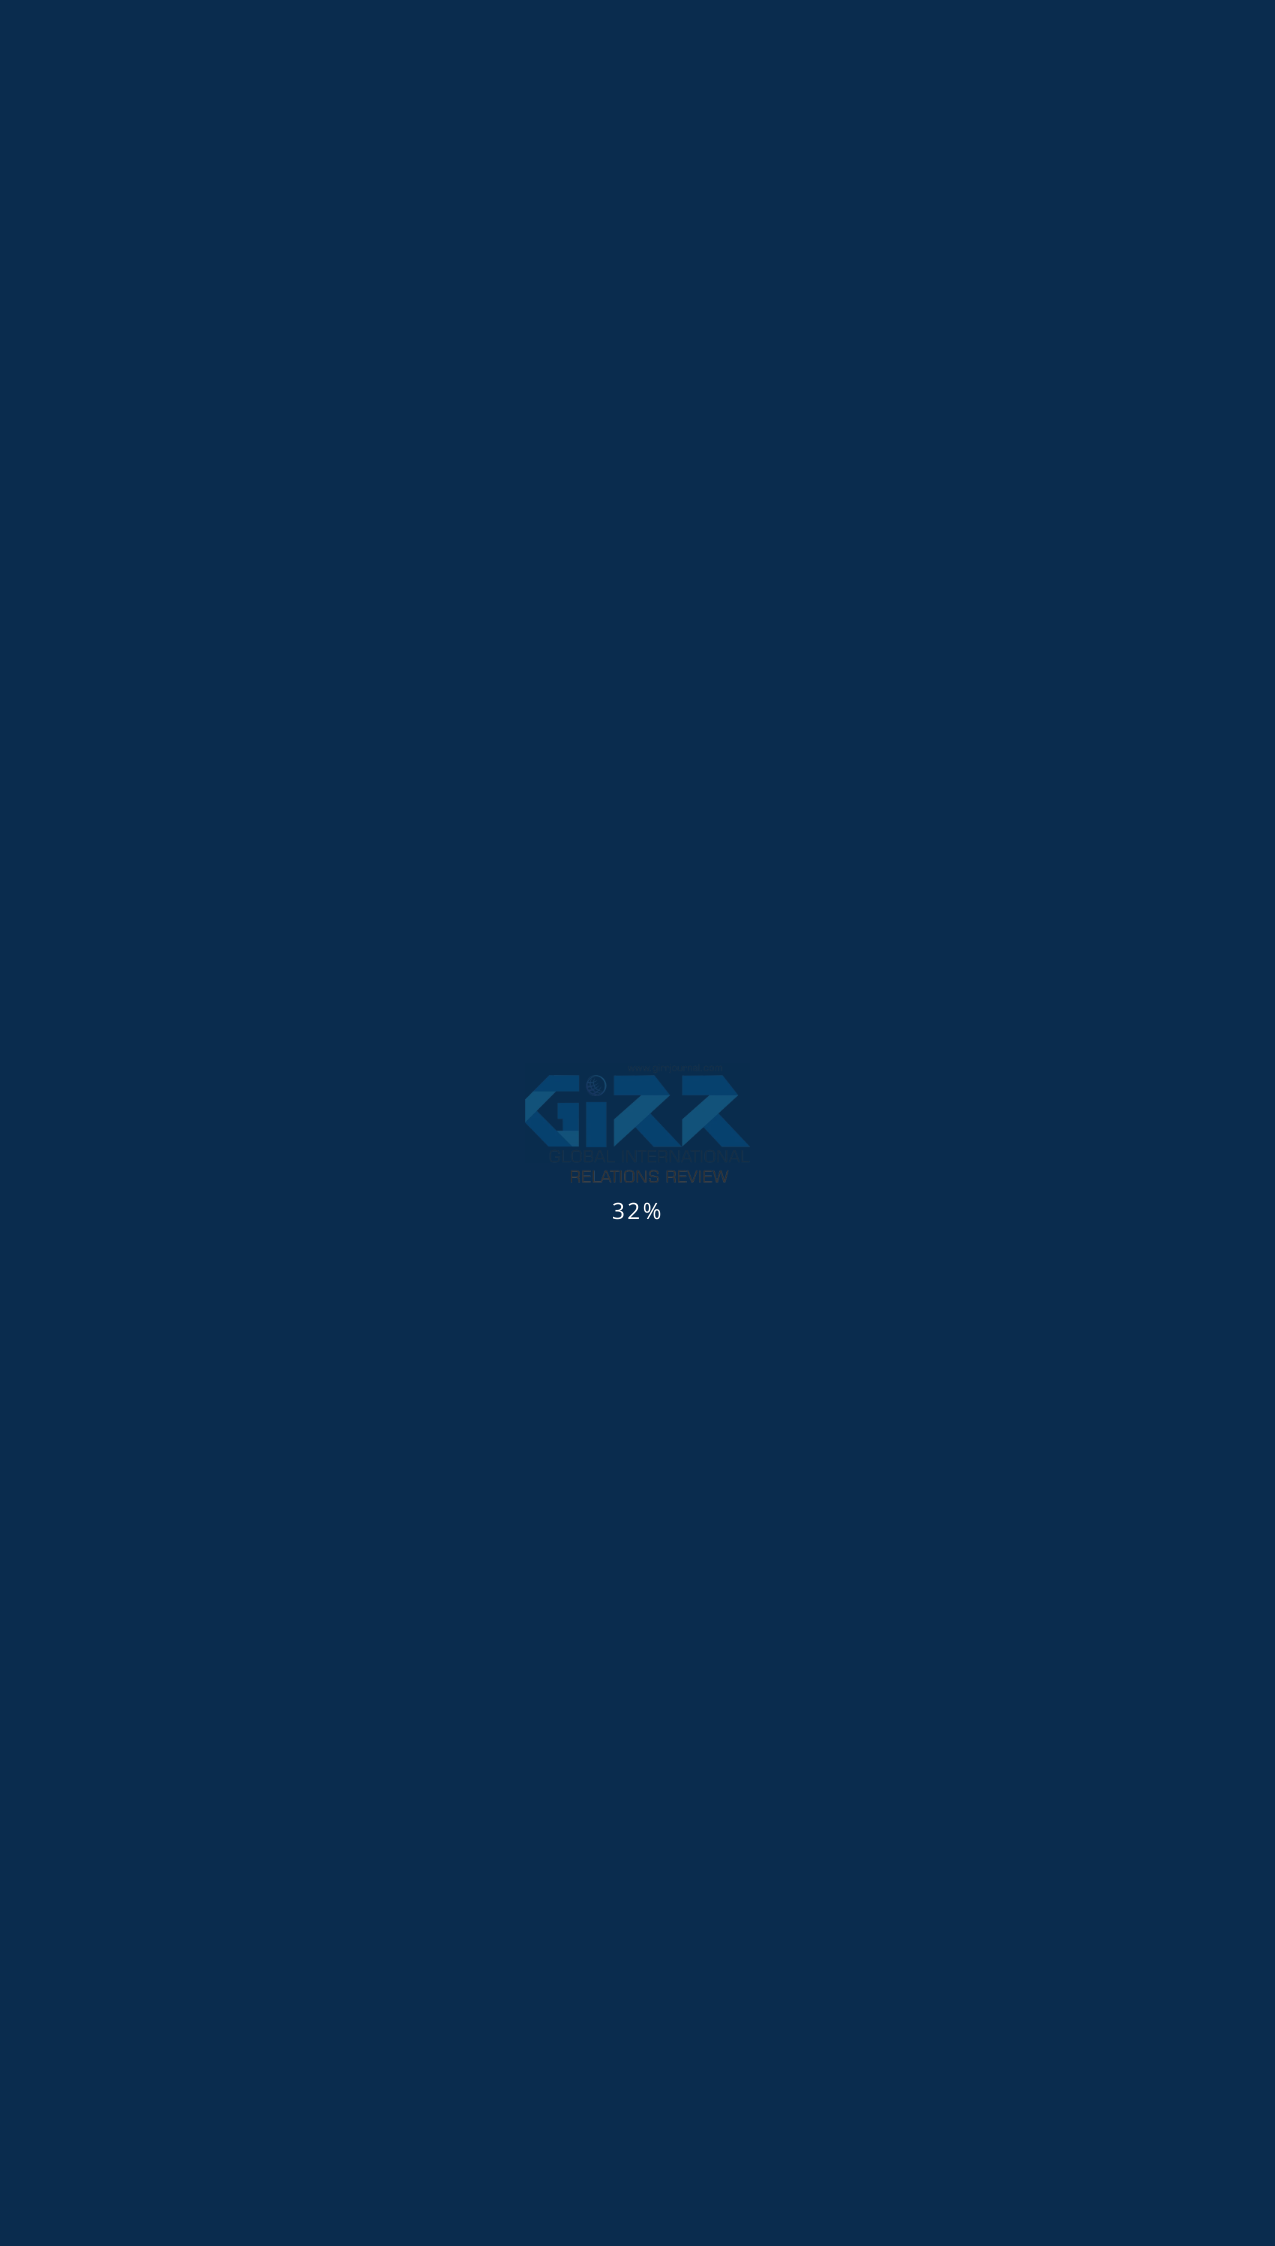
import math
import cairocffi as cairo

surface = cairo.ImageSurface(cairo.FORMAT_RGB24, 1275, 2246)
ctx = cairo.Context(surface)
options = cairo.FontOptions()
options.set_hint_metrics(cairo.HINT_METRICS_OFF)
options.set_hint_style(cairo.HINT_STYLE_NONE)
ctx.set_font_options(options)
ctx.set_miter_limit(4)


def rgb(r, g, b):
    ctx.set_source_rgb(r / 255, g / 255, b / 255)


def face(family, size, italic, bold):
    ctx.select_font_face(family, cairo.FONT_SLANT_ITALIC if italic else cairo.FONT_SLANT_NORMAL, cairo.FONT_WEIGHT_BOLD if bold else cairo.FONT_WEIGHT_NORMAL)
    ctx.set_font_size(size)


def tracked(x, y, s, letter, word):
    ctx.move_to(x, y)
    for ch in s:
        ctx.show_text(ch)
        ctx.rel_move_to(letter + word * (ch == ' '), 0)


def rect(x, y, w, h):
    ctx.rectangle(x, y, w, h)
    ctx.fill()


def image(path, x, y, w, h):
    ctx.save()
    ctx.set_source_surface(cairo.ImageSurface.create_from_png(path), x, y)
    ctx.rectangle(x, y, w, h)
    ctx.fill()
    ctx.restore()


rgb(10, 44, 78)
ctx.paint()
image('image0.png', 525, 1063, 225, 120)
ctx.set_source_rgba(0.039, 0.173, 0.306, 0.7)
rect(525, 1063, 225, 100)
face('Open Sans', 22.5, 0, 0)
rgb(255, 255, 255)
tracked(612, 1219, '32%', 2.5, 0)
surface.write_to_png('render.png')
